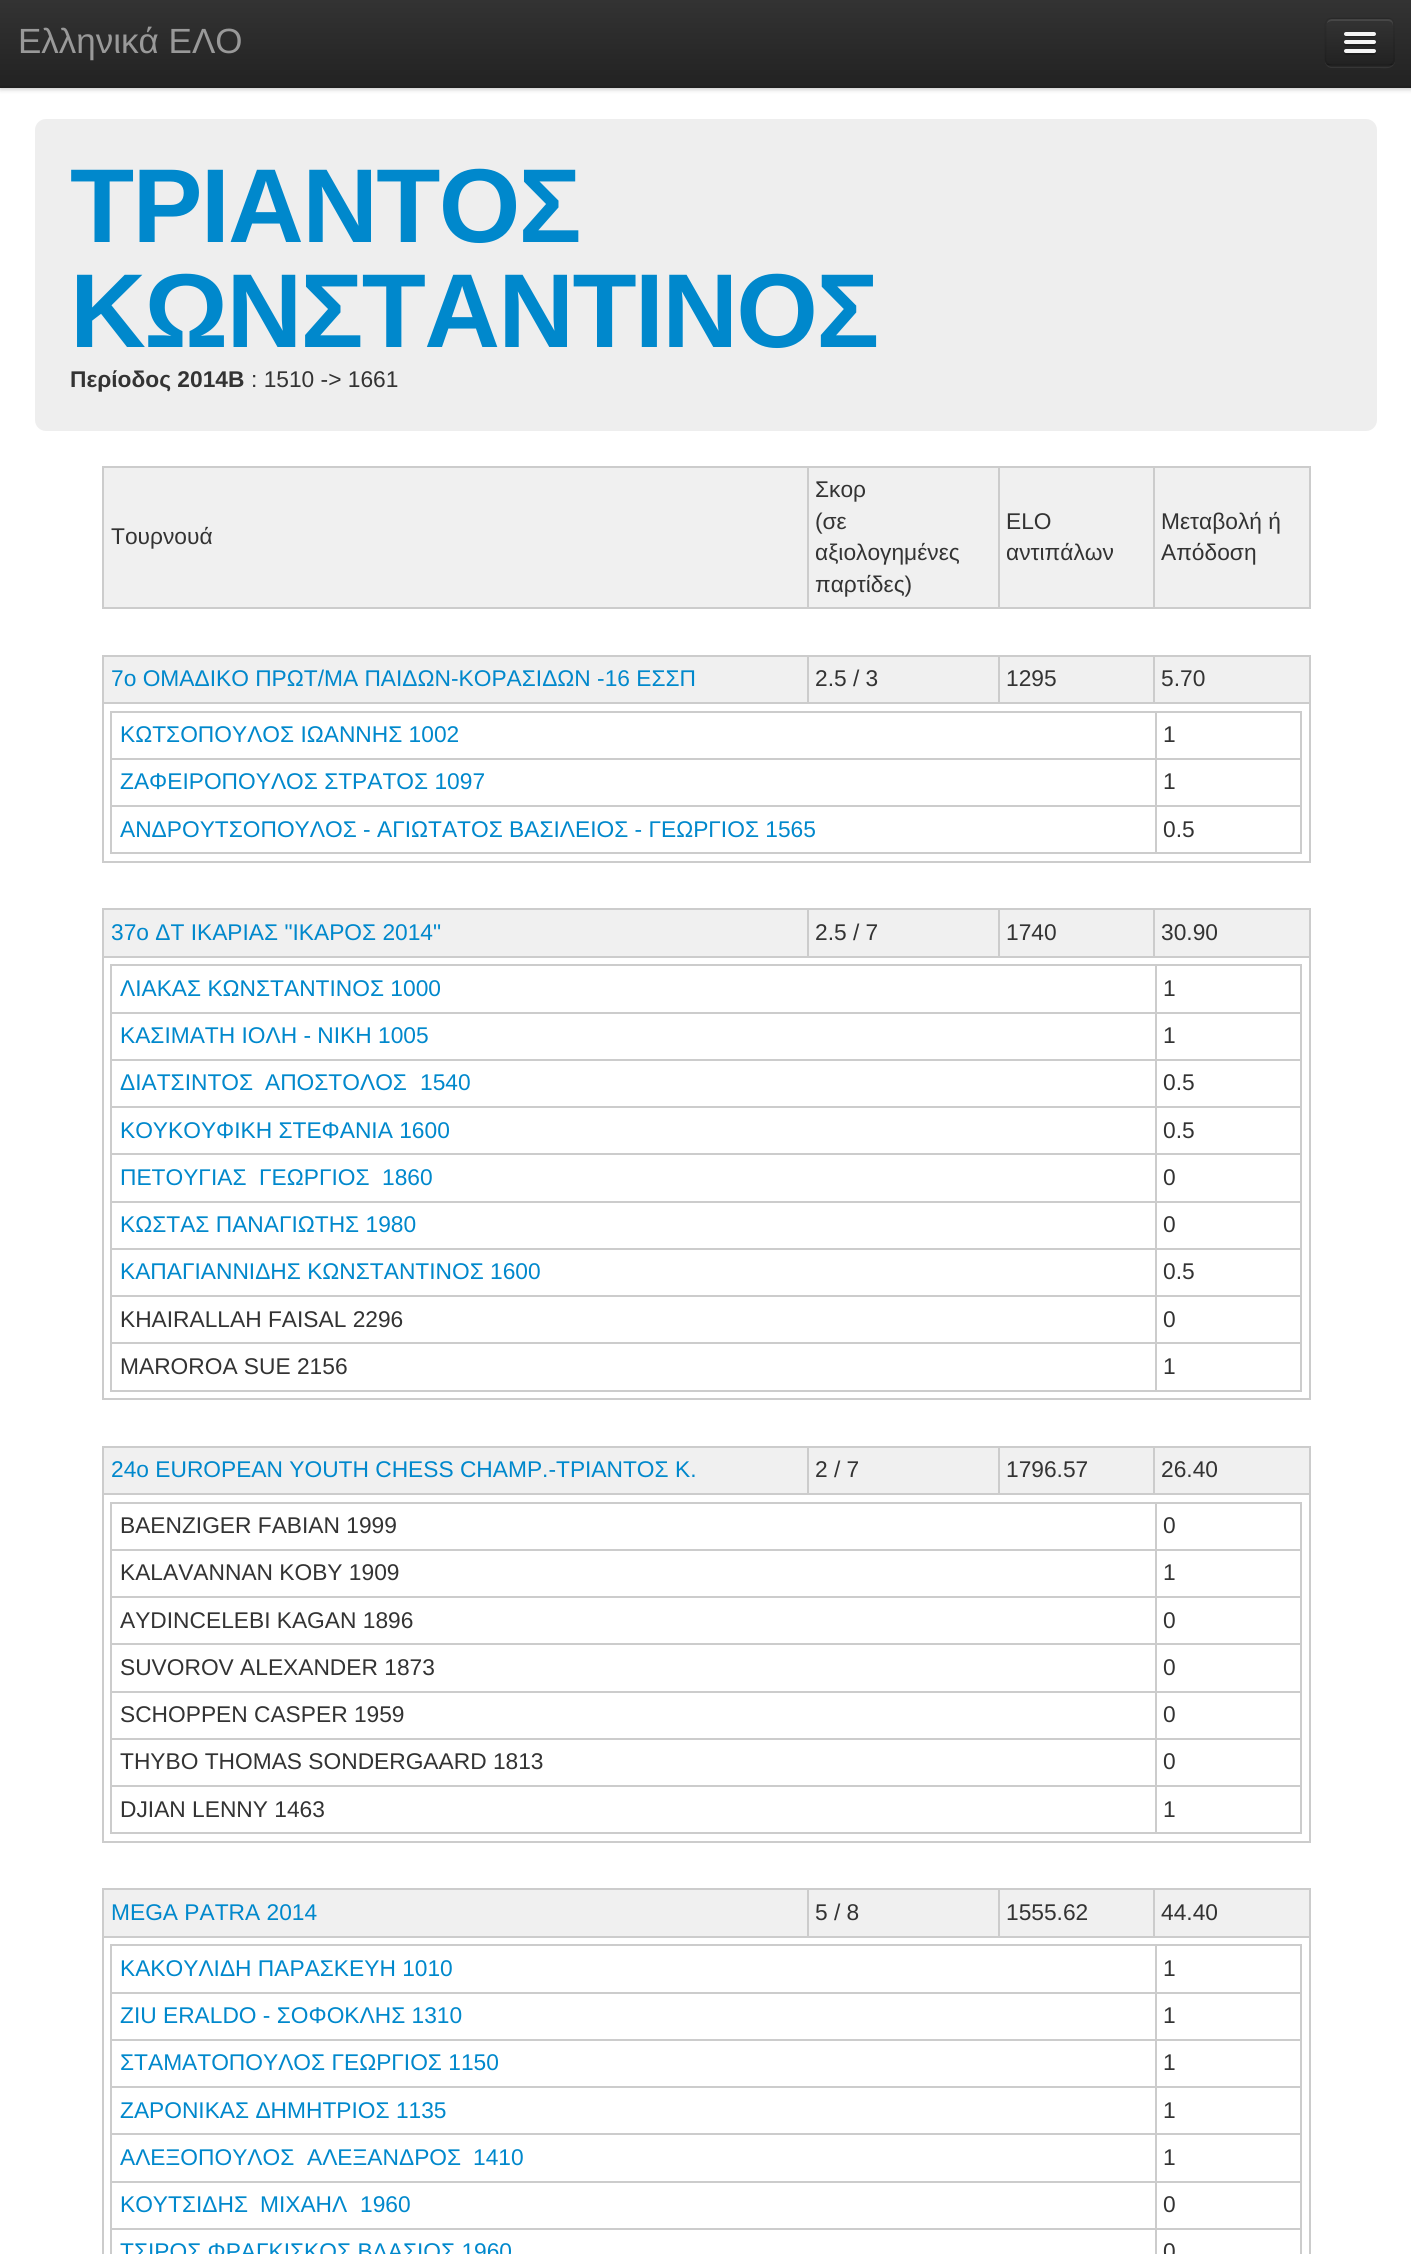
import math
import cairocffi as cairo

surface = cairo.ImageSurface(cairo.FORMAT_RGB24, 1411, 2254)
ctx = cairo.Context(surface)
options = cairo.FontOptions()
options.set_hint_metrics(cairo.HINT_METRICS_OFF)
options.set_hint_style(cairo.HINT_STYLE_NONE)
ctx.set_font_options(options)
ctx.set_miter_limit(4)


def rgb(r, g, b):
    ctx.set_source_rgb(r / 255, g / 255, b / 255)


def face(family, size, italic, bold):
    ctx.select_font_face(family, cairo.FONT_SLANT_ITALIC if italic else cairo.FONT_SLANT_NORMAL, cairo.FONT_WEIGHT_BOLD if bold else cairo.FONT_WEIGHT_NORMAL)
    ctx.set_font_size(size)


def label(x, y, s):
    ctx.move_to(x, y)
    ctx.show_text(s)


def tracked(x, y, s, letter, word):
    ctx.move_to(x, y)
    for ch in s:
        ctx.show_text(ch)
        ctx.rel_move_to(letter + word * (ch == ' '), 0)


def rect(x, y, w, h):
    ctx.rectangle(x, y, w, h)
    ctx.fill()


def rrect(x, y, w, h, r):
    ctx.new_sub_path()
    for i, (u, v) in enumerate([(x + w - r, y + h - r), (x + r, y + h - r), (x + r, y + r), (x + w - r, y + r)]):
        ctx.arc(u, v, r, i * math.pi / 2, (i + 1) * math.pi / 2)
    ctx.close_path()


def soft_shadow(x, y, w, h, r, blur, alpha):
    ctx.push_group_with_content(cairo.CONTENT_ALPHA)
    ctx.set_operator(cairo.OPERATOR_SOURCE)
    for i in range(15, -16, -2):
        e = blur * i / 6
        if min(w, h) + 2 * e > 0:
            ctx.set_source_rgba(0, 0, 0, alpha * math.erfc((i - 1) / 8.5) / 2)
            rrect(x - e, y - e, w + 2 * e, h + 2 * e, max(0, min(r + e + blur * .6, min(w, h) / 2 + e)))
            ctx.fill()
    ctx.mask(ctx.pop_group())


rgb(255, 255, 255)
ctx.paint()
rgb(0, 0, 0)
soft_shadow(0, 2, 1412, 87, 0, 2.5, 0.25)
gradient = cairo.LinearGradient(706, 0, 706, 88)
gradient.add_color_stop_rgba(0, 0.2, 0.2, 0.2, 1)
gradient.add_color_stop_rgba(1, 0.133, 0.133, 0.133, 1)
ctx.set_source(gradient)
rect(0, 0, 1411, 86)
rgb(31, 31, 31)
rect(0, 86, 1411, 2)
face('Liberation Sans', 35, 0, 0)
rgb(153, 153, 153)
label(18, 53, 'Ελληνικά ΕΛΟ')
rgb(54, 54, 54)
ctx.new_path()
ctx.move_to(1325, 61)
ctx.curve_to(1325, 65, 1328, 68, 1332, 68)
ctx.line_to(1379, 68)
ctx.curve_to(1384, 68, 1393, 70, 1395, 62)
ctx.line_to(1395, 24)
ctx.line_to(1395, 61)
ctx.line_to(1393, 64)
ctx.curve_to(1389, 68, 1382, 66, 1378, 66)
ctx.line_to(1341, 66)
ctx.curve_to(1336, 66, 1327, 68, 1325, 61)
ctx.close_path()
ctx.fill()
rgb(44, 44, 44)
rrect(1325, 18, 70, 49, 7)
ctx.fill()
ctx.save()
rrect(1325, 18, 70, 49, 7)
ctx.clip()
gradient = cairo.LinearGradient(1360, 19, 1360, 65)
gradient.add_color_stop_rgba(0, 0.2, 0.2, 0.2, 1)
gradient.add_color_stop_rgba(1, 0.133, 0.133, 0.133, 1)
ctx.set_source(gradient)
rect(1325, 19, 70, 46)
ctx.restore()
rgb(71, 71, 71)
ctx.new_path()
ctx.move_to(1332, 21)
ctx.line_to(1388, 21)
ctx.curve_to(1391, 21, 1393, 23, 1393, 26)
ctx.line_to(1393, 24)
ctx.curve_to(1393, 21, 1391, 19, 1388, 19)
ctx.line_to(1332, 19)
ctx.curve_to(1330, 19, 1327, 21, 1327, 23)
ctx.curve_to(1328, 22, 1330, 21, 1332, 21)
ctx.close_path()
ctx.fill()
ctx.new_path()
ctx.move_to(1392, 64)
ctx.curve_to(1391, 65, 1389.5, 65.5, 1388, 65.5)
ctx.line_to(1332, 65.5)
ctx.curve_to(1330, 65.5, 1328.5, 65, 1327.5, 64)
ctx.set_source_rgba(0, 0, 0, 0.25)
ctx.set_line_width(1.8)
ctx.stroke()
ctx.new_path()
ctx.move_to(1327.5, 64)
ctx.curve_to(1326.5, 62.5, 1325.5, 61, 1325.5, 59.5)
ctx.line_to(1325.5, 24.5)
ctx.curve_to(1325.5, 23, 1326.5, 21.5, 1327.5, 20)
ctx.curve_to(1328.5, 19, 1330, 18.5, 1332, 18.5)
ctx.line_to(1388, 18.5)
ctx.curve_to(1389.5, 18.5, 1391, 19, 1392, 20)
ctx.curve_to(1393, 21.5, 1394, 23, 1394, 24.5)
ctx.line_to(1394, 59.5)
ctx.curve_to(1394, 61, 1393, 62.5, 1392, 64)
ctx.set_source_rgba(0, 0, 0, 0.1)
ctx.stroke()
rgb(34, 34, 34)
ctx.new_path()
ctx.move_to(1344, 34)
ctx.curve_to(1342.5, 38, 1350, 37, 1350.5, 37)
ctx.line_to(1369.5, 37)
ctx.curve_to(1370.5, 37, 1375.5, 38, 1376, 35.5)
ctx.curve_to(1376, 35, 1376, 34, 1375.5, 33.5)
ctx.curve_to(1375.5, 34.5, 1374.5, 35, 1374, 35)
ctx.line_to(1346, 35)
ctx.curve_to(1345, 35, 1344.5, 34.5, 1344, 34)
ctx.close_path()
ctx.fill()
rgb(245, 245, 245)
rrect(1344, 32, 32, 4, 2)
ctx.fill()
rgb(31, 31, 31)
ctx.new_path()
ctx.move_to(1344.5, 43)
ctx.curve_to(1342, 47, 1350, 46, 1350.5, 46)
ctx.line_to(1360, 46)
ctx.curve_to(1362.5, 46, 1374, 46.5, 1375.5, 45.5)
ctx.curve_to(1376, 44.5, 1376, 43.5, 1375.5, 42.5)
ctx.line_to(1374.5, 43.5)
ctx.line_to(1345.5, 43.5)
ctx.close_path()
ctx.fill()
rgb(245, 245, 245)
rrect(1344, 40, 32, 4, 2)
ctx.fill()
rgb(29, 29, 29)
ctx.new_path()
ctx.move_to(1344.5, 52)
ctx.line_to(1344, 53.5)
ctx.curve_to(1344.5, 56, 1349.5, 55, 1350.5, 55)
ctx.line_to(1369.5, 55)
ctx.curve_to(1371, 55, 1376, 56, 1376, 53)
ctx.line_to(1375.5, 51.5)
ctx.curve_to(1375, 52, 1374.5, 52.5, 1374, 52.5)
ctx.line_to(1345.5, 52.5)
ctx.close_path()
ctx.fill()
rgb(245, 245, 245)
rrect(1344, 49, 32, 4, 2)
ctx.fill()
rgb(238, 238, 238)
rrect(35, 119, 1342, 312, 11)
ctx.fill()
face('Liberation Sans', 105, 0, 1)
rgb(0, 136, 204)
tracked(70, 242, 'ΤΡΙΑΝΤΟΣ', -1.75, 0)
tracked(70, 347, 'ΚΩΝΣΤΑΝΤΙΝΟΣ', -1.75, 0)
face('Liberation Sans', 22.75, 0, 1)
rgb(51, 51, 51)
label(70, 387, 'Περίοδος 2014B')
face('Liberation Sans', 22.75, 0, 0)
label(251, 387, ': 1510 -> 1661')
rgb(240, 240, 240)
rect(104, 468, 1205, 139)
rgb(204, 204, 204)
rect(1153, 466, 158, 2)
rect(1309, 466, 2, 143)
rect(1153, 607, 158, 2)
rect(1153, 466, 2, 143)
rect(998, 466, 157, 2)
rect(998, 607, 157, 2)
rect(998, 466, 2, 143)
rect(807, 466, 192, 2)
rect(807, 607, 192, 2)
rect(807, 466, 2, 143)
rect(102, 466, 707, 2)
rect(102, 607, 707, 2)
rect(102, 466, 2, 143)
rgb(51, 51, 51)
label(111, 544, 'Τουρνουά')
label(815, 497, 'Σκορ')
label(815, 529, '(σε')
label(815, 560, 'αξιολογημένες')
label(815, 592, 'παρτίδες)')
label(1006, 529, 'ELO')
label(1006, 560, 'αντιπάλων')
label(1161, 529, 'Μεταβολή ή')
label(1161, 560, 'Απόδοση')
rgb(240, 240, 240)
rect(104, 657, 1205, 45)
rgb(204, 204, 204)
rect(1153, 655, 158, 2)
rect(102, 702, 1209, 2)
rect(1153, 655, 2, 49)
rect(998, 655, 157, 2)
rect(998, 655, 2, 49)
rect(807, 655, 192, 2)
rect(807, 655, 2, 49)
rect(102, 655, 707, 2)
rect(1309, 702, 2, 161)
rect(102, 861, 1209, 2)
rect(102, 702, 2, 161)
rect(102, 655, 2, 49)
rgb(0, 136, 204)
label(111, 686, '7ο ΟΜΑΔΙΚΟ ΠΡΩΤ/ΜΑ ΠΑΙΔΩΝ-ΚΟΡΑΣΙΔΩΝ -16 ΕΣΣΠ')
rgb(51, 51, 51)
label(815, 686, '2.5 / 3')
label(1006, 686, '1295')
rgb(204, 204, 204)
rect(1309, 655, 2, 49)
rgb(51, 51, 51)
label(1161, 686, '5.70')
rgb(204, 204, 204)
rect(1155, 711, 147, 2)
rect(1155, 758, 147, 2)
rect(1155, 805, 147, 2)
rect(1300, 805, 2, 49)
rect(1155, 852, 147, 2)
rect(1155, 805, 2, 49)
rect(110, 805, 1047, 2)
rect(1155, 758, 2, 49)
rect(110, 758, 1047, 2)
rect(1155, 711, 2, 49)
rect(110, 711, 1047, 2)
rect(110, 852, 1047, 2)
rect(110, 805, 2, 49)
rect(110, 758, 2, 49)
rect(110, 711, 2, 49)
rgb(0, 136, 204)
label(120, 742, 'ΚΩΤΣΟΠΟΥΛΟΣ ΙΩΑΝΝΗΣ 1002')
rgb(204, 204, 204)
rect(1300, 758, 2, 49)
rect(1300, 711, 2, 49)
rgb(51, 51, 51)
label(1163, 742, '1')
rgb(0, 136, 204)
label(120, 789, 'ΖΑΦΕΙΡΟΠΟΥΛΟΣ ΣΤΡΑΤΟΣ 1097')
rgb(51, 51, 51)
label(1163, 789, '1')
rgb(0, 136, 204)
label(120, 837, 'ΑΝΔΡΟΥΤΣΟΠΟΥΛΟΣ - ΑΓΙΩΤΑΤΟΣ ΒΑΣΙΛΕΙΟΣ - ΓΕΩΡΓΙΟΣ 1565')
rgb(51, 51, 51)
label(1163, 837, '0.5')
rgb(240, 240, 240)
rect(104, 910, 1205, 46)
rgb(204, 204, 204)
rect(1153, 908, 158, 2)
rect(102, 956, 1209, 2)
rect(1153, 908, 2, 49)
rect(998, 908, 157, 2)
rect(998, 908, 2, 49)
rect(807, 908, 192, 2)
rect(807, 908, 2, 49)
rect(102, 908, 707, 2)
rect(1309, 956, 2, 444)
rect(102, 1398, 1209, 2)
rect(102, 956, 2, 444)
rect(102, 908, 2, 49)
rgb(0, 136, 204)
label(111, 940, '37ο ΔΤ ΙΚΑΡΙΑΣ "ΙΚΑΡΟΣ 2014"')
rgb(51, 51, 51)
label(815, 940, '2.5 / 7')
label(1006, 940, '1740')
rgb(204, 204, 204)
rect(1309, 908, 2, 49)
rgb(51, 51, 51)
label(1161, 940, '30.90')
rgb(204, 204, 204)
rect(1155, 964, 147, 2)
rect(1155, 1012, 147, 2)
rect(1155, 1059, 147, 2)
rect(1155, 1106, 147, 2)
rect(1155, 1153, 147, 2)
rect(1155, 1201, 147, 2)
rect(1155, 1248, 147, 2)
rect(1155, 1295, 147, 2)
rect(1155, 1342, 147, 2)
rect(1300, 1342, 2, 49)
rect(1155, 1390, 147, 2)
rect(1155, 1342, 2, 49)
rect(110, 1342, 1047, 2)
rect(1155, 1295, 2, 49)
rect(110, 1295, 1047, 2)
rect(1155, 1248, 2, 49)
rect(110, 1248, 1047, 2)
rect(1155, 1201, 2, 49)
rect(110, 1201, 1047, 2)
rect(1155, 1153, 2, 49)
rect(110, 1153, 1047, 2)
rect(1155, 1106, 2, 49)
rect(110, 1106, 1047, 2)
rect(1155, 1059, 2, 49)
rect(110, 1059, 1047, 2)
rect(1155, 1012, 2, 49)
rect(110, 1012, 1047, 2)
rect(1155, 964, 2, 49)
rect(110, 964, 1047, 2)
rect(110, 1390, 1047, 2)
rect(110, 1342, 2, 49)
rect(110, 1295, 2, 49)
rect(110, 1248, 2, 49)
rect(110, 1201, 2, 49)
rect(110, 1153, 2, 49)
rect(110, 1106, 2, 49)
rect(110, 1059, 2, 49)
rect(110, 1012, 2, 49)
rect(110, 964, 2, 49)
rgb(0, 136, 204)
label(120, 996, 'ΛΙΑΚΑΣ ΚΩΝΣΤΑΝΤΙΝΟΣ 1000')
rgb(204, 204, 204)
rect(1300, 1295, 2, 49)
rect(1300, 1248, 2, 49)
rect(1300, 1201, 2, 49)
rect(1300, 1153, 2, 49)
rect(1300, 1106, 2, 49)
rect(1300, 1059, 2, 49)
rect(1300, 1012, 2, 49)
rect(1300, 964, 2, 49)
rgb(51, 51, 51)
label(1163, 996, '1')
rgb(0, 136, 204)
label(120, 1043, 'ΚΑΣΙΜΑΤΗ ΙΟΛΗ - ΝΙΚΗ 1005')
rgb(51, 51, 51)
label(1163, 1043, '1')
rgb(0, 136, 204)
label(120, 1090, 'ΔΙΑΤΣΙΝΤΟΣ')
label(265, 1090, 'ΑΠΟΣΤΟΛΟΣ')
label(420, 1090, '1540')
rgb(51, 51, 51)
label(1163, 1090, '0.5')
rgb(0, 136, 204)
label(120, 1138, 'ΚΟΥΚΟΥΦΙΚΗ ΣΤΕΦΑΝΙΑ 1600')
rgb(51, 51, 51)
label(1163, 1138, '0.5')
rgb(0, 136, 204)
label(120, 1185, 'ΠΕΤΟΥΓΙΑΣ')
label(259, 1185, 'ΓΕΩΡΓΙΟΣ')
label(382, 1185, '1860')
rgb(51, 51, 51)
label(1163, 1185, '0')
rgb(0, 136, 204)
label(120, 1232, 'ΚΩΣΤΑΣ ΠΑΝΑΓΙΩΤΗΣ 1980')
rgb(51, 51, 51)
label(1163, 1232, '0')
rgb(0, 136, 204)
label(120, 1279, 'ΚΑΠΑΓΙΑΝΝΙΔΗΣ ΚΩΝΣΤΑΝΤΙΝΟΣ 1600')
rgb(51, 51, 51)
label(1163, 1279, '0.5')
label(120, 1327, 'KHAIRALLAH FAISAL 2296')
label(1163, 1327, '0')
label(120, 1374, 'MAROROA SUE 2156')
label(1163, 1374, '1')
rgb(240, 240, 240)
rect(104, 1448, 1205, 45)
rgb(204, 204, 204)
rect(1153, 1446, 158, 2)
rect(102, 1493, 1209, 2)
rect(1153, 1446, 2, 49)
rect(998, 1446, 157, 2)
rect(998, 1446, 2, 49)
rect(807, 1446, 192, 2)
rect(807, 1446, 2, 49)
rect(102, 1446, 707, 2)
rect(1309, 1493, 2, 350)
rect(102, 1841, 1209, 2)
rect(102, 1493, 2, 350)
rect(102, 1446, 2, 49)
rgb(0, 136, 204)
label(111, 1477, '24o EUROPEAN YOUTH CHESS CHAMP.-ΤΡΙΑΝΤΟΣ Κ.')
rgb(51, 51, 51)
label(815, 1477, '2 / 7')
label(1006, 1477, '1796.57')
rgb(204, 204, 204)
rect(1309, 1446, 2, 49)
rgb(51, 51, 51)
label(1161, 1477, '26.40')
rgb(204, 204, 204)
rect(1155, 1502, 147, 2)
rect(1155, 1549, 147, 2)
rect(1155, 1596, 147, 2)
rect(1155, 1643, 147, 2)
rect(1155, 1691, 147, 2)
rect(1155, 1738, 147, 2)
rect(1155, 1785, 147, 2)
rect(1300, 1785, 2, 49)
rect(1155, 1832, 147, 2)
rect(1155, 1785, 2, 49)
rect(110, 1785, 1047, 2)
rect(1155, 1738, 2, 49)
rect(110, 1738, 1047, 2)
rect(1155, 1691, 2, 49)
rect(110, 1691, 1047, 2)
rect(1155, 1643, 2, 49)
rect(110, 1643, 1047, 2)
rect(1155, 1596, 2, 49)
rect(110, 1596, 1047, 2)
rect(1155, 1549, 2, 49)
rect(110, 1549, 1047, 2)
rect(1155, 1502, 2, 49)
rect(110, 1502, 1047, 2)
rect(110, 1832, 1047, 2)
rect(110, 1785, 2, 49)
rect(110, 1738, 2, 49)
rect(110, 1691, 2, 49)
rect(110, 1643, 2, 49)
rect(110, 1596, 2, 49)
rect(110, 1549, 2, 49)
rect(110, 1502, 2, 49)
rgb(51, 51, 51)
label(120, 1533, 'BAENZIGER FABIAN 1999')
rgb(204, 204, 204)
rect(1300, 1738, 2, 49)
rect(1300, 1691, 2, 49)
rect(1300, 1643, 2, 49)
rect(1300, 1596, 2, 49)
rect(1300, 1549, 2, 49)
rect(1300, 1502, 2, 49)
rgb(51, 51, 51)
label(1163, 1533, '0')
label(120, 1580, 'KALAVANNAN KOBY 1909')
label(1163, 1580, '1')
label(120, 1628, 'AYDINCELEBI KAGAN 1896')
label(1163, 1628, '0')
label(120, 1675, 'SUVOROV ALEXANDER 1873')
label(1163, 1675, '0')
label(120, 1722, 'SCHOPPEN CASPER 1959')
label(1163, 1722, '0')
label(120, 1769, 'THYBO THOMAS SONDERGAARD 1813')
label(1163, 1769, '0')
label(120, 1817, 'DJIAN LENNY 1463')
label(1163, 1817, '1')
rgb(240, 240, 240)
rect(104, 1890, 1205, 46)
rgb(204, 204, 204)
rect(1153, 1888, 158, 2)
rect(102, 1936, 1209, 2)
rect(1153, 1888, 2, 49)
rect(998, 1888, 157, 2)
rect(998, 1888, 2, 49)
rect(807, 1888, 192, 2)
rect(807, 1888, 2, 49)
rect(102, 1888, 707, 2)
rect(102, 1936, 2, 318)
rect(102, 1888, 2, 49)
rgb(0, 136, 204)
label(111, 1920, 'MEGA PATRA 2014')
rgb(51, 51, 51)
label(815, 1920, '5 / 8')
label(1006, 1920, '1555.62')
rgb(204, 204, 204)
rect(1309, 1936, 2, 318)
rect(1309, 1888, 2, 49)
rgb(51, 51, 51)
label(1161, 1920, '44.40')
rgb(204, 204, 204)
rect(1155, 1944, 147, 2)
rect(1155, 1992, 147, 2)
rect(1155, 2039, 147, 2)
rect(1155, 2086, 147, 2)
rect(1155, 2133, 147, 2)
rect(1155, 2181, 147, 2)
rect(1155, 2228, 147, 2)
rect(1155, 2228, 2, 26)
rect(110, 2228, 1047, 2)
rect(1155, 2181, 2, 49)
rect(110, 2181, 1047, 2)
rect(1155, 2133, 2, 49)
rect(110, 2133, 1047, 2)
rect(1155, 2086, 2, 49)
rect(110, 2086, 1047, 2)
rect(1155, 2039, 2, 49)
rect(110, 2039, 1047, 2)
rect(1155, 1992, 2, 49)
rect(110, 1992, 1047, 2)
rect(1155, 1944, 2, 49)
rect(110, 1944, 1047, 2)
rect(110, 2228, 2, 26)
rect(110, 2181, 2, 49)
rect(110, 2133, 2, 49)
rect(110, 2086, 2, 49)
rect(110, 2039, 2, 49)
rect(110, 1992, 2, 49)
rect(110, 1944, 2, 49)
rgb(0, 136, 204)
label(120, 1976, 'ΚΑΚΟΥΛΙΔΗ ΠΑΡΑΣΚΕΥΗ 1010')
rgb(204, 204, 204)
rect(1300, 2228, 2, 26)
rect(1300, 2181, 2, 49)
rect(1300, 2133, 2, 49)
rect(1300, 2086, 2, 49)
rect(1300, 2039, 2, 49)
rect(1300, 1992, 2, 49)
rect(1300, 1944, 2, 49)
rgb(51, 51, 51)
label(1163, 1976, '1')
rgb(0, 136, 204)
label(120, 2023, 'ZIU ERALDO - ΣΟΦΟΚΛΗΣ 1310')
rgb(51, 51, 51)
label(1163, 2023, '1')
rgb(0, 136, 204)
label(120, 2070, 'ΣΤΑΜΑΤΟΠΟΥΛΟΣ ΓΕΩΡΓΙΟΣ 1150')
rgb(51, 51, 51)
label(1163, 2070, '1')
rgb(0, 136, 204)
label(120, 2118, 'ΖΑΡΟΝΙΚΑΣ ΔΗΜΗΤΡΙΟΣ 1135')
rgb(51, 51, 51)
label(1163, 2118, '1')
rgb(0, 136, 204)
label(120, 2165, 'ΑΛΕΞΟΠΟΥΛΟΣ')
label(307, 2165, 'ΑΛΕΞΑΝΔΡΟΣ')
label(473, 2165, '1410')
rgb(51, 51, 51)
label(1163, 2165, '1')
rgb(0, 136, 204)
label(120, 2212, 'ΚΟΥΤΣΙΔΗΣ')
label(260, 2212, 'ΜΙΧΑΗΛ')
label(360, 2212, '1960')
rgb(51, 51, 51)
label(1163, 2212, '0')
rgb(0, 136, 204)
label(120, 2259, 'ΤΣΙΡΟΣ ΦΡΑΓΚΙΣΚΟΣ ΒΛΑΣΙΟΣ 1960')
rgb(51, 51, 51)
label(1163, 2259, '0')
surface.write_to_png('render.png')
